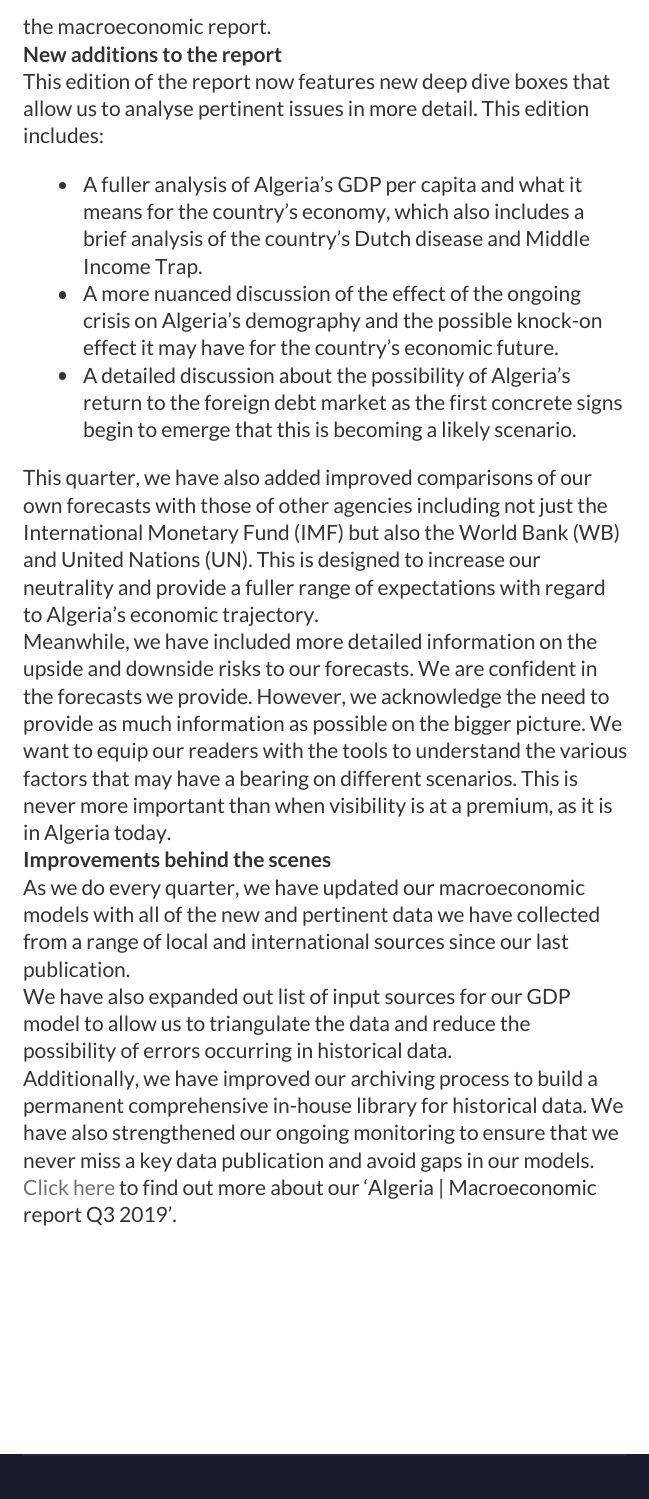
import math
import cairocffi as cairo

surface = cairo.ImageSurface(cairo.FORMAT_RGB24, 649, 1499)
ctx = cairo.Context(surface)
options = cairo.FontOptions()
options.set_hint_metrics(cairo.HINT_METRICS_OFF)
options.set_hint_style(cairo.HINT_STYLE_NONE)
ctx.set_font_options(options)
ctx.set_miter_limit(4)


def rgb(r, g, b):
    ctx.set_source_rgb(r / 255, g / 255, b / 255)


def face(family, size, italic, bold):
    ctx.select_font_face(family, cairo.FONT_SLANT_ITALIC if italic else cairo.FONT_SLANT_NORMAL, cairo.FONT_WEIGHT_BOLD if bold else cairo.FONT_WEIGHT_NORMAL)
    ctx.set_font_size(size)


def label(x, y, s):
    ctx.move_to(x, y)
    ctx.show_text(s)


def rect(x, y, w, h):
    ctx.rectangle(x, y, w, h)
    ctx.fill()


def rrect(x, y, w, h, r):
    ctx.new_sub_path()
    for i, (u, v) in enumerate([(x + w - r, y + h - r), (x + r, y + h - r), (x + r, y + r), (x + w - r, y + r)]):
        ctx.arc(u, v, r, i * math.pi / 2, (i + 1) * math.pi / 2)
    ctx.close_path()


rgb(255, 255, 255)
ctx.paint()
face('Lato', 21, 0, 0)
rgb(49, 52, 55)
label(23, 34, 'the macroeconomic report.')
face('Lato', 21, 0, 1)
label(23, 62, 'New additions to the report')
face('Lato', 21, 0, 0)
label(23, 89, 'This edition of the report now features new deep dive boxes that')
label(23, 116, 'allow us to analyse pertinent issues in more detail. This edition')
label(23, 143, 'includes:')
ctx.new_path()
ctx.arc(62.5, 185.5, 3.5, 0, 2 * math.pi)
ctx.fill()
label(83, 192, 'A fuller analysis of Algeria’s GDP per capita and what it')
label(83, 219, 'means for the country’s economy, which also includes a')
label(83, 246, 'brief analysis of the country’s Dutch disease and Middle')
label(83, 274, 'Income Trap.')
rrect(59, 291, 7, 8, 3.5)
ctx.fill()
label(83, 301, 'A more nuanced discussion of the effect of the ongoing')
label(83, 328, 'crisis on Algeria’s demography and the possible knock-on')
label(83, 355, 'effect it may have for the country’s economic future.')
rrect(59, 372, 7, 8, 3.5)
ctx.fill()
label(83, 383, 'A detailed discussion about the possibility of Algeria’s')
label(83, 410, 'return to the foreign debt market as the first concrete signs')
label(83, 437, 'begin to emerge that this is becoming a likely scenario.')
label(23, 485, 'This quarter, we have also added improved comparisons of our')
label(23, 513, 'own forecasts with those of other agencies including not just the')
label(23, 540, 'International Monetary Fund (IMF) but also the World Bank (WB)')
label(23, 567, 'and United Nations (UN). This is designed to increase our')
label(23, 595, 'neutrality and provide a fuller range of expectations with regard')
label(23, 622, 'to Algeria’s economic trajectory.')
label(23, 649, 'Meanwhile, we have included more detailed information on the')
label(23, 676, 'upside and downside risks to our forecasts. We are confident in')
label(23, 704, 'the forecasts we provide. However, we acknowledge the need to')
label(23, 731, 'provide as much information as possible on the bigger picture. We')
label(23, 758, 'want to equip our readers with the tools to understand the various')
label(23, 786, 'factors that may have a bearing on different scenarios. This is')
label(23, 813, 'never more important than when visibility is at a premium, as it is')
label(23, 840, 'in Algeria today.')
face('Lato', 21, 0, 1)
label(23, 867, 'Improvements behind the scenes')
face('Lato', 21, 0, 0)
label(23, 895, 'As we do every quarter, we have updated our macroeconomic')
label(23, 922, 'models with all of the new and pertinent data we have collected')
label(23, 949, 'from a range of local and international sources since our last')
label(23, 977, 'publication.')
label(23, 1004, 'We have also expanded out list of input sources for our GDP')
label(23, 1031, 'model to allow us to triangulate the data and reduce the')
label(23, 1058, 'possibility of errors occurring in historical data.')
label(23, 1086, 'Additionally, we have improved our archiving process to build a')
label(23, 1113, 'permanent comprehensive in-house library for historical data. We')
label(23, 1140, 'have also strengthened our ongoing monitoring to ensure that we')
label(23, 1168, 'never miss a key data publication and avoid gaps in our models.')
rgb(111, 113, 115)
label(23, 1195, 'Click here')
rgb(49, 52, 55)
label(119, 1195, 'to find out more about our ‘Algeria | Macroeconomic')
label(23, 1222, 'report Q3 2019’.')
rgb(25, 28, 46)
rect(0, 1454, 649, 45)
rgb(37, 41, 60)
rect(23, 1454, 604, 2)
surface.write_to_png('render.png')
